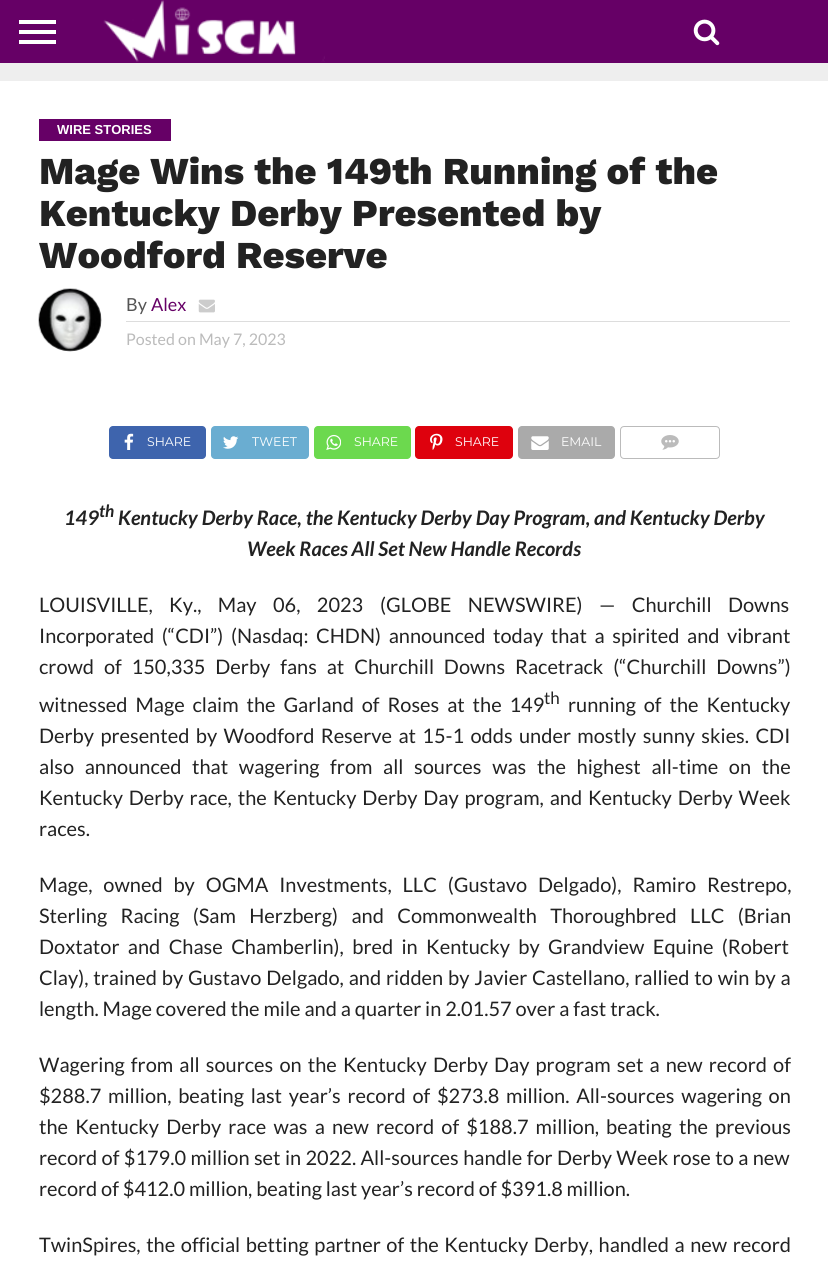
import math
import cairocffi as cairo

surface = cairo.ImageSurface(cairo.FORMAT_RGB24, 828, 1261)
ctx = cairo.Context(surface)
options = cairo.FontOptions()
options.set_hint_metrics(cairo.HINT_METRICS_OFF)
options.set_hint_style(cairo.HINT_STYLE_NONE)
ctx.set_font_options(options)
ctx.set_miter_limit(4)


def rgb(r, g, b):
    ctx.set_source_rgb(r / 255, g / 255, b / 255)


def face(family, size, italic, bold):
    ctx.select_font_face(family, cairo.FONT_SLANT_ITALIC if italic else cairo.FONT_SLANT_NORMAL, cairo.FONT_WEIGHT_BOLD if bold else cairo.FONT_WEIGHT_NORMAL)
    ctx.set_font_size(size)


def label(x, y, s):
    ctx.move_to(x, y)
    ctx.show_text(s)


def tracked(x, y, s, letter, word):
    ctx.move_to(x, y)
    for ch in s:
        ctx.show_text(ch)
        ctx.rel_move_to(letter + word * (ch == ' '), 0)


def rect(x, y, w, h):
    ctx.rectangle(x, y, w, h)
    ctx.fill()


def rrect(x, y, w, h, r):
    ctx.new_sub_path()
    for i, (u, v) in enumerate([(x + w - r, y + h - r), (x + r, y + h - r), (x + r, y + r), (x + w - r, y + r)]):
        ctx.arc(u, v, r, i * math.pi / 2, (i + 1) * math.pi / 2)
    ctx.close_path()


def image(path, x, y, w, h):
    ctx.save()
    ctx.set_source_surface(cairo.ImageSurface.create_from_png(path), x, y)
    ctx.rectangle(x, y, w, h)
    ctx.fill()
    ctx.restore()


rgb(238, 238, 238)
ctx.paint()
rgb(102, 0, 102)
rect(0, 0, 828, 63)
rgb(255, 255, 255)
rect(19, 20, 37, 4)
rect(19, 30, 37, 4)
rect(19, 40, 37, 4)
image('image0.png', 103, 0, 222, 62)
image('image1.png', 693, 19, 27, 27)
rect(0, 81, 828, 1180)
rgb(102, 0, 102)
rect(39, 119, 132, 22)
face('Liberation Sans', 13, 0, 1)
rgb(255, 255, 255)
label(57, 134, 'WIRE STORIES')
face('Work Sans ExtraBold', 38, 0, 0)
rgb(34, 34, 34)
label(39, 184, 'Mage Wins the 149th Running of the')
label(39, 226, 'Kentucky Derby Presented by')
label(39, 268, 'Woodford Reserve')
image('image2.png', 38, 288, 64, 64)
rgb(221, 221, 221)
rect(126, 321, 664, 1)
face('Lato', 18, 0, 0)
rgb(85, 85, 85)
label(126, 311, 'By')
rgb(102, 0, 102)
label(151, 311, 'Alex')
image('image3.png', 198, 299, 17, 14)
face('Lato', 16, 0, 0)
rgb(187, 187, 187)
label(126, 345, 'Posted on May 7, 2023')
rgb(62, 100, 173)
rrect(109, 426, 97, 33, 4)
ctx.fill()
image('image4.png', 124, 433, 10, 17)
face('Montserrat', 12.5, 0, 0)
rgb(255, 255, 255)
label(147, 446, 'SHARE')
rgb(106, 173, 209)
rrect(211, 426, 98, 33, 4)
ctx.fill()
image('image5.png', 223, 436, 16, 13)
rgb(255, 255, 255)
label(252, 446, 'TWEET')
rgb(108, 217, 78)
rrect(314, 426, 97, 33, 4)
ctx.fill()
image('image6.png', 326, 434, 15, 16)
rgb(255, 255, 255)
label(354, 446, 'SHARE')
rgb(222, 1, 13)
rrect(415, 426, 98, 33, 4)
ctx.fill()
image('image7.png', 430, 433, 13, 17)
rgb(255, 255, 255)
label(455, 446, 'SHARE')
rgb(170, 170, 170)
rrect(518, 426, 97, 33, 4)
ctx.fill()
image('image8.png', 531, 436, 18, 14)
rgb(255, 255, 255)
label(561, 446, 'EMAIL')
rrect(620.5, 426.5, 99, 32, 3.5)
rgb(187, 187, 187)
ctx.set_line_width(1)
ctx.stroke()
image('image9.png', 661, 435, 18, 15)
face('Lato', 20, 1, 1)
rgb(34, 34, 34)
label(64, 525, '149')
face('Lato', 17, 1, 1)
label(99, 517, 'th')
face('Lato', 20, 1, 1)
label(118, 525, 'Kentucky Derby Race, the Kentucky Derby Day Program, and Kentucky Derby')
label(247, 556, 'Week Races All Set New Handle Records')
face('Lato', 20, 0, 0)
tracked(39, 612, 'LOUISVILLE, Ky., May', 0, 12.5)
tracked(273, 612, '06, 2023', 0, 12.5)
tracked(380, 612, '(GLOBE NEWSWIRE) — Churchill Downs', 0, 12.5)
tracked(39, 643, 'Incorporated (“CDI”) (Nasdaq: CHDN) announced today that a spirited and vibrant', 0, 3.75)
tracked(39, 674, 'crowd of 150,335 Derby fans at Churchill Downs Racetrack (“Churchill Downs”)', 0, 6)
tracked(39, 712, 'witnessed Mage claim the Garland of Roses at the 149', 0, 4)
face('Lato', 17, 0, 0)
label(544, 704, 'th')
face('Lato', 20, 0, 0)
tracked(568, 712, 'running of the Kentucky', 0, 4)
tracked(39, 743, 'Derby presented by Woodford Reserve at 15-1 odds under mostly sunny skies. CDI', 0, 2.5)
tracked(39, 774, 'also announced that wagering from all sources was the highest all-time on the', 0, 6.75)
tracked(39, 805, 'Kentucky Derby race, the Kentucky Derby Day program, and Kentucky Derby Week', 0, 2)
label(39, 836, 'races.')
tracked(39, 892, 'Mage, owned by OGMA Investments, LLC (Gustavo Delgado), Ramiro Restrepo,', 0, 7)
tracked(39, 923, 'Sterling Racing (Sam Herzberg) and Commonwealth Thoroughbred LLC (Brian', 0, 9.5)
tracked(39, 954, 'Doxtator and Chase Chamberlin), bred in Kentucky by Grandview Equine (Robert', 0, 4.5)
tracked(39, 985, 'Clay), trained by Gustavo Delgado, and ridden by Javier Castellano, rallied to win by a', 0, 1)
label(39, 1016, 'length. Mage covered the mile and a quarter in 2.01.57 over a fast track.')
tracked(39, 1072, 'Wagering from all sources on the Kentucky Derby Day program set a new record of', 0, 2.25)
tracked(39, 1103, '$288.7 million, beating last year’s record of $273.8 million. All-sources wagering on', 0, 2.9)
tracked(39, 1134, 'the Kentucky Derby race was a new record of $188.7 million, beating the previous', 0, 3.25)
tracked(39, 1165, 'record of $179.0 million set in 2022. All-sources handle for Derby Week rose to a new', 0, 0.5)
label(39, 1196, 'record of $412.0 million, beating last year’s record of $391.8 million.')
tracked(39, 1252, 'TwinSpires, the official betting partner of the Kentucky Derby, handled a new record', 0, 1.7)
surface.write_to_png('render.png')
